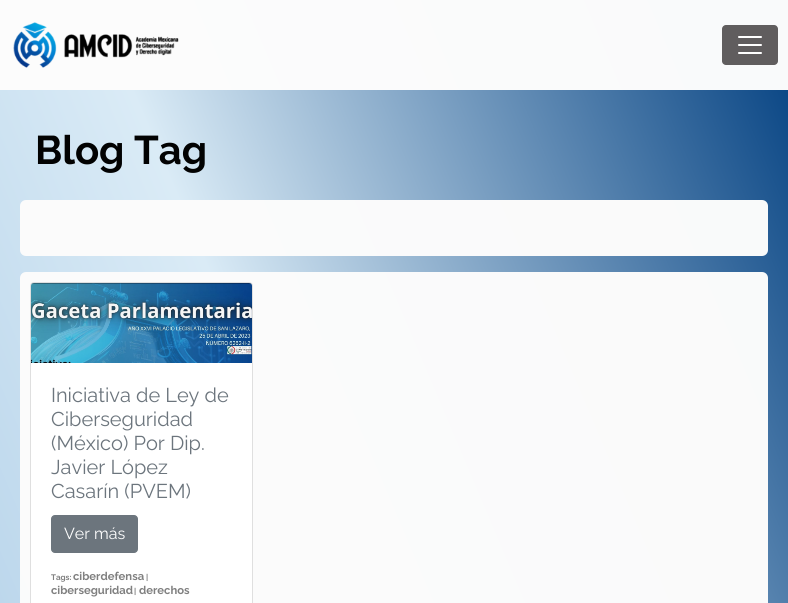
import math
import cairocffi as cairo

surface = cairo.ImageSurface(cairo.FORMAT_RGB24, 788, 603)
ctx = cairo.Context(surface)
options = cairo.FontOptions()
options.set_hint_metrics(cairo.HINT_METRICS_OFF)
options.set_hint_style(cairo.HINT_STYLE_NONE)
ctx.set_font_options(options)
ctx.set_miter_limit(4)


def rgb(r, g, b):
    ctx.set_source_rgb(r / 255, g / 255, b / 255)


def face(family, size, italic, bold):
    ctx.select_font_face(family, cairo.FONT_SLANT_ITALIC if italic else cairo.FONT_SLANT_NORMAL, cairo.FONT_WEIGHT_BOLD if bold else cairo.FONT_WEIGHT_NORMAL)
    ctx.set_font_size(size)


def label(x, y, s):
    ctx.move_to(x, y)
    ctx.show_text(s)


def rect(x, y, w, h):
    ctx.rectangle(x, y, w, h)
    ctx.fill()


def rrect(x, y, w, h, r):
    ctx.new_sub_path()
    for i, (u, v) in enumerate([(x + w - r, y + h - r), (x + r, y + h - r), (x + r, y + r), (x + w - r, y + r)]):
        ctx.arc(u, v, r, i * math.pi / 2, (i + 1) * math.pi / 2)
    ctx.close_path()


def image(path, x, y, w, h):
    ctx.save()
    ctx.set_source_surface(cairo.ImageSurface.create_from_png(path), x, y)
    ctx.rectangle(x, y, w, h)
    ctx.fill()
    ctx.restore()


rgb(255, 255, 255)
ctx.paint()
gradient = cairo.LinearGradient(-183, 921, 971, 432)
gradient.add_color_stop_rgba(0, 0.635, 0.773, 0.89, 1)
gradient.add_color_stop_rgba(0.49, 0.855, 0.922, 0.965, 1)
gradient.add_color_stop_rgba(1, 0.004, 0.247, 0.502, 1)
ctx.set_source(gradient)
rect(0, 90, 788, 513)
gradient = cairo.LinearGradient(-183, 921, 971, 432)
gradient.add_color_stop_rgba(0, 0.984, 0.984, 0.988, 1)
gradient.add_color_stop_rgba(0.49, 0.988, 0.988, 0.988, 1)
gradient.add_color_stop_rgba(1, 0.976, 0.98, 0.984, 1)
ctx.set_source(gradient)
rect(0, 0, 788, 90)
image('image0.png', 13, 22, 166, 46)
rgb(96, 93, 94)
rrect(722, 25, 56, 40, 4)
ctx.fill()
image('image1.png', 738, 36, 24, 18)
face('Raleway', 40, 0, 1)
rgb(2, 2, 2)
label(35, 164, 'Blog Tag')
ctx.set_source_rgba(0.984, 0.984, 0.984, 0.99)
rrect(20, 200, 748, 56, 6)
ctx.fill()
rrect(20, 272, 748, 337, 6)
ctx.fill()
rgb(255, 255, 255)
rrect(30.5, 282.5, 222, 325, 3.5)
ctx.fill_preserve()
rgb(223, 223, 223)
ctx.set_line_width(1)
ctx.stroke()
image('image2.png', 31, 283, 221, 80)
face('Raleway', 20, 0, 0)
rgb(108, 117, 125)
label(51, 402, 'Iniciativa de Ley de')
label(51, 426, 'Ciberseguridad')
label(51, 450, '(México) Por Dip.')
label(51, 474, 'Javier López')
label(51, 498, 'Casarín (PVEM)')
rrect(51.5, 515.5, 86, 37, 3.5)
ctx.fill_preserve()
ctx.stroke()
face('Raleway', 16, 0, 0)
rgb(255, 255, 255)
label(64, 539, 'Ver más')
face('Raleway', 8, 0, 1)
rgb(128, 128, 128)
label(51, 580, 'Tags:')
face('Raleway', 11.25, 0, 1)
label(73, 580, 'ciberdefensa')
face('Raleway', 8, 0, 1)
label(146, 580, '|')
face('Raleway', 11.25, 0, 1)
label(51, 594, 'ciberseguridad')
face('Raleway', 8, 0, 1)
label(134, 594, '|')
face('Raleway', 11.25, 0, 1)
label(139, 594, 'derechos')
surface.write_to_png('render.png')
